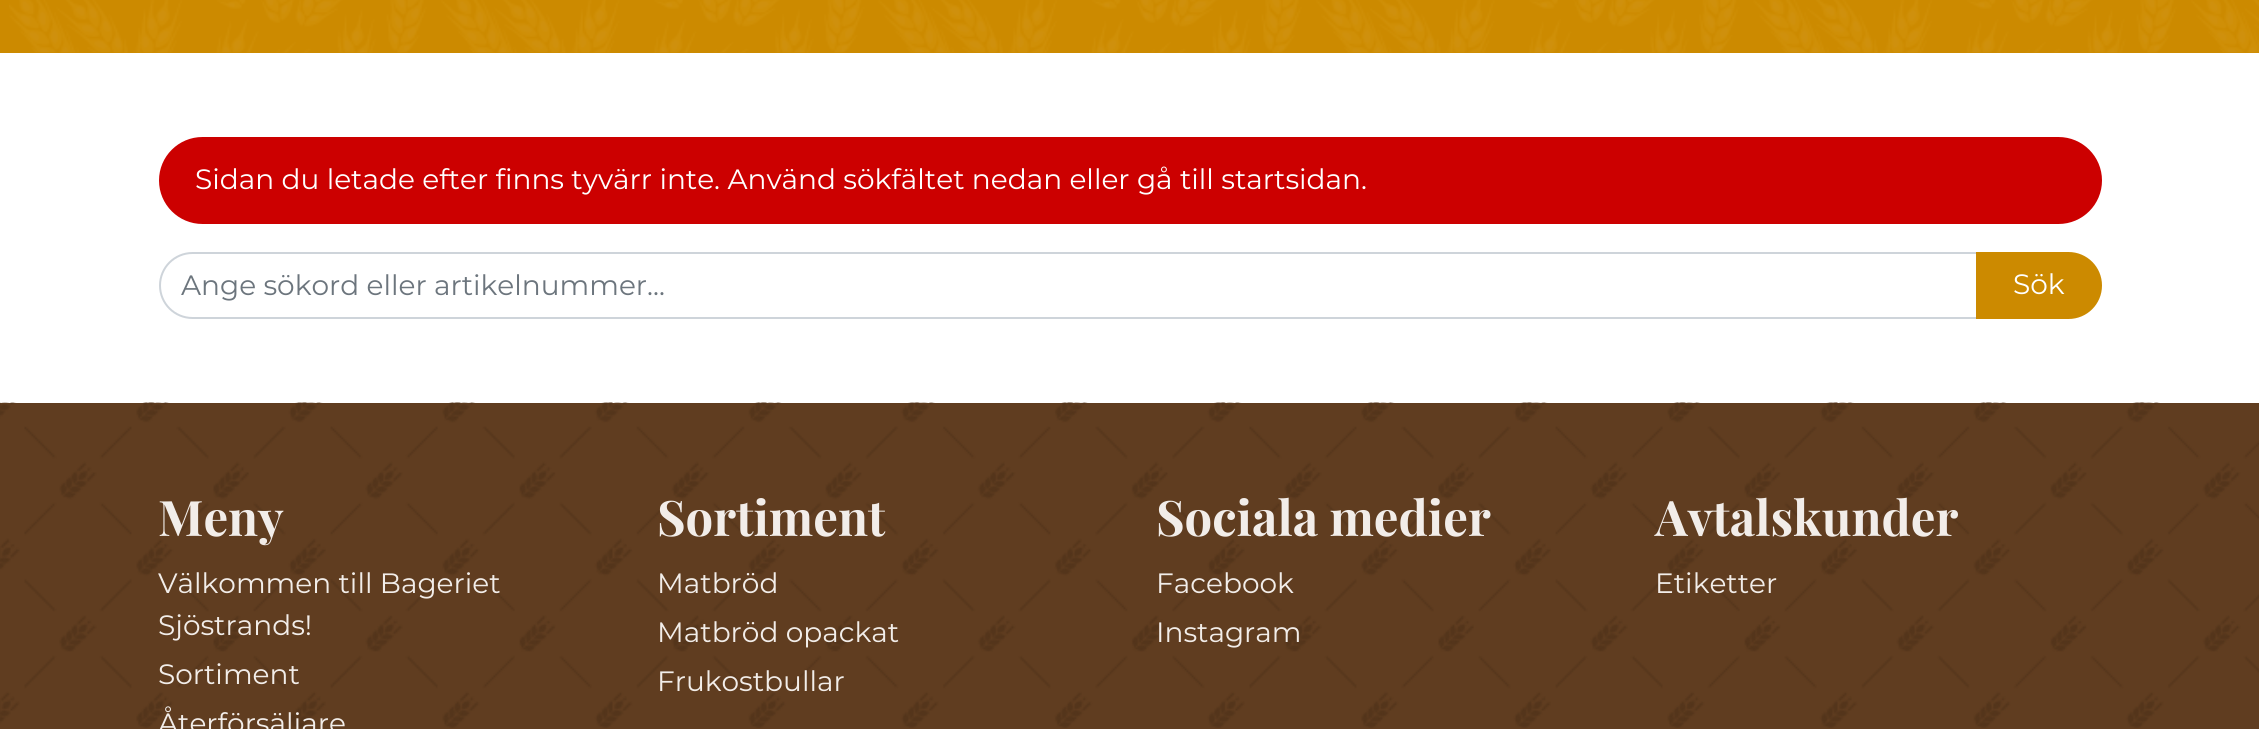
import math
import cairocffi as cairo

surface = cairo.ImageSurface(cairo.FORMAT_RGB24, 2259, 729)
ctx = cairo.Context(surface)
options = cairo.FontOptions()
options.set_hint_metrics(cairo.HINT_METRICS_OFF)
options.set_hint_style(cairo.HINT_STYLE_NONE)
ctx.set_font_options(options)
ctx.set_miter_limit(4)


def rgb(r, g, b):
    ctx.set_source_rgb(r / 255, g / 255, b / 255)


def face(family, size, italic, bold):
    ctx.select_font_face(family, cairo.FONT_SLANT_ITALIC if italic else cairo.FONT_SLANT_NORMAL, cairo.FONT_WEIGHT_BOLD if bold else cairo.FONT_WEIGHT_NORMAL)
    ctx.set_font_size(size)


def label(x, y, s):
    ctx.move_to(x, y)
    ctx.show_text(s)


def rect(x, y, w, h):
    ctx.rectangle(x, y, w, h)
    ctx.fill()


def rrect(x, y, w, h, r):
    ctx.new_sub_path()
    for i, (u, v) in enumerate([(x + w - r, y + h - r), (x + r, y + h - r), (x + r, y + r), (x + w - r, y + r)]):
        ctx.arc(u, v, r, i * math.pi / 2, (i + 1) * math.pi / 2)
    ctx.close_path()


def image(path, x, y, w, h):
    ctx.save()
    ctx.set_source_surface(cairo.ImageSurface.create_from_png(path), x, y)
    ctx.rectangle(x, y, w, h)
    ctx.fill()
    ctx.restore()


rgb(255, 255, 255)
ctx.paint()
rgb(204, 138, 0)
rect(0, 0, 2259, 53)
image('image0.png', 9, 0, 2250, 53)
rgb(204, 0, 0)
rrect(160, 138, 1941, 85, 42.5)
ctx.fill_preserve()
ctx.stroke()
face('Montserrat', 28, 0, 0)
rgb(255, 255, 255)
label(195, 189, 'Sidan du letade efter finns tyvärr inte. Använd sökfältet nedan eller gå till startsidan.')
ctx.new_path()
ctx.move_to(192.5, 253)
ctx.line_to(1977, 253)
ctx.line_to(1977, 318)
ctx.line_to(192.5, 318)
ctx.curve_to(174.5, 318, 160, 303.5, 160, 285.5)
ctx.curve_to(160, 267.5, 174.5, 253, 192.5, 253)
ctx.close_path()
rgb(206, 212, 218)
ctx.stroke()
rgb(108, 117, 125)
label(181, 295, 'Ange sökord eller artikelnummer...')
rgb(204, 138, 0)
ctx.new_path()
ctx.move_to(1977, 253)
ctx.line_to(2068.5, 253)
ctx.curve_to(2086.5, 253, 2101, 267.5, 2101, 285.5)
ctx.curve_to(2101, 303.5, 2086.5, 318, 2068.5, 318)
ctx.line_to(1977, 318)
ctx.close_path()
ctx.fill_preserve()
ctx.stroke()
rgb(255, 255, 255)
label(2013, 294, 'Sök')
rgb(96, 61, 32)
rect(0, 403, 2259, 326)
image('image1.png', 0, 402, 2259, 326)
face('Playfair Display', 49, 0, 1)
rgb(242, 237, 233)
label(158, 536, 'Meny')
face('Montserrat', 28, 0, 0)
label(158, 593, 'Välkommen till Bageriet')
label(158, 635, 'Sjöstrands!')
label(158, 684, 'Sortiment')
label(158, 733, 'Återförsäljare')
face('Playfair Display', 49, 0, 1)
label(657, 536, 'Sortiment')
face('Montserrat', 28, 0, 0)
label(657, 593, 'Matbröd')
label(657, 642, 'Matbröd opackat')
label(657, 691, 'Frukostbullar')
face('Playfair Display', 49, 0, 1)
label(1156, 536, 'Sociala medier')
face('Montserrat', 28, 0, 0)
label(1156, 593, 'Facebook')
label(1156, 642, 'Instagram')
face('Playfair Display', 49, 0, 1)
label(1655, 536, 'Avtalskunder')
face('Montserrat', 28, 0, 0)
label(1655, 593, 'Etiketter')
surface.write_to_png('render.png')
